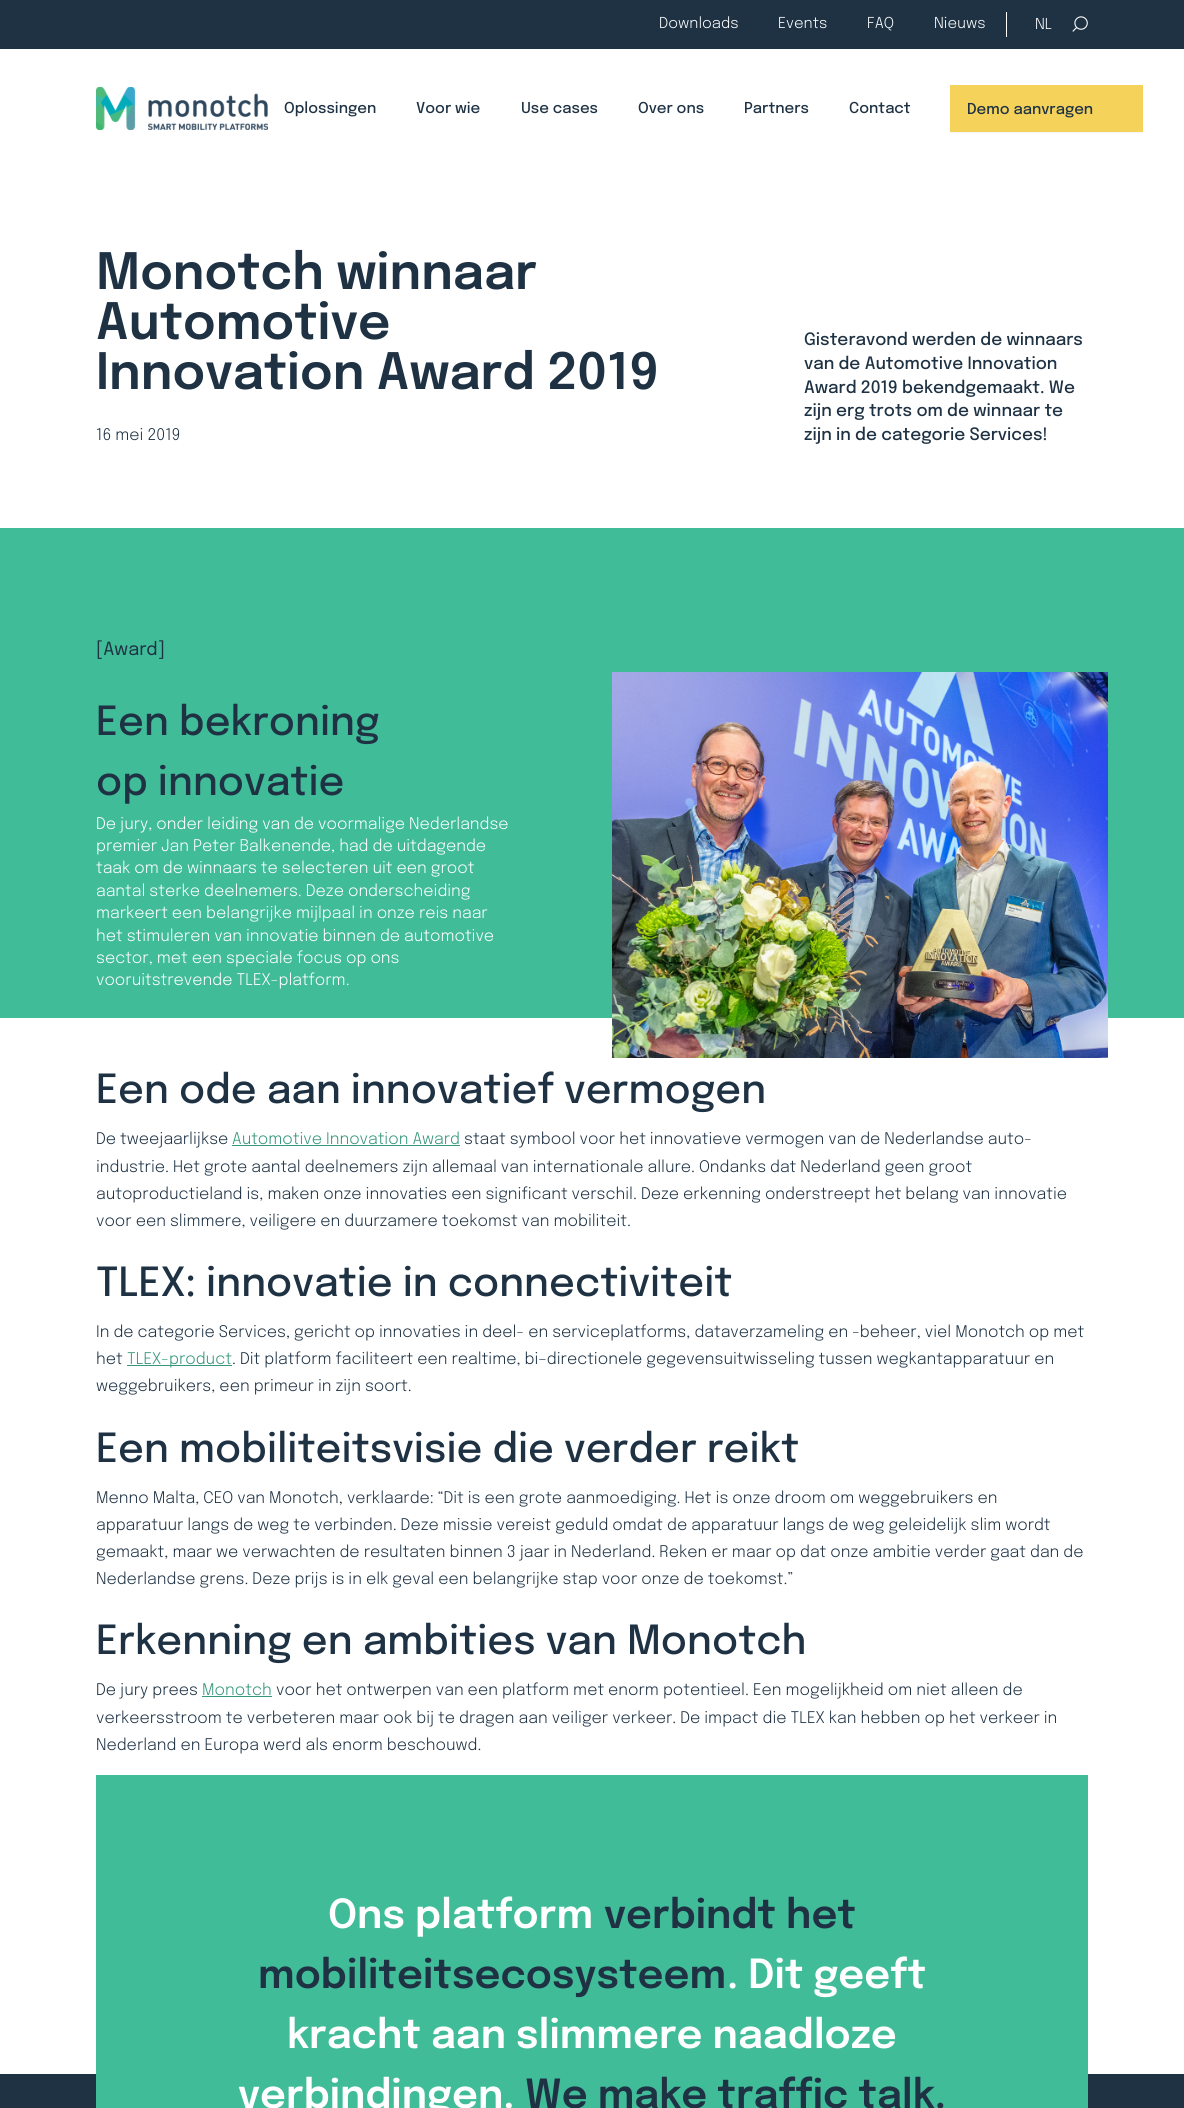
import math
import cairocffi as cairo

surface = cairo.ImageSurface(cairo.FORMAT_RGB24, 1184, 2108)
ctx = cairo.Context(surface)
options = cairo.FontOptions()
options.set_hint_metrics(cairo.HINT_METRICS_OFF)
options.set_hint_style(cairo.HINT_STYLE_NONE)
ctx.set_font_options(options)
ctx.set_miter_limit(4)


def rgb(r, g, b):
    ctx.set_source_rgb(r / 255, g / 255, b / 255)


def face(family, size, italic, bold):
    ctx.select_font_face(family, cairo.FONT_SLANT_ITALIC if italic else cairo.FONT_SLANT_NORMAL, cairo.FONT_WEIGHT_BOLD if bold else cairo.FONT_WEIGHT_NORMAL)
    ctx.set_font_size(size)


def label(x, y, s):
    ctx.move_to(x, y)
    ctx.show_text(s)


def rect(x, y, w, h):
    ctx.rectangle(x, y, w, h)
    ctx.fill()


def rrect(x, y, w, h, r):
    ctx.new_sub_path()
    for i, (u, v) in enumerate([(x + w - r, y + h - r), (x + r, y + h - r), (x + r, y + r), (x + w - r, y + r)]):
        ctx.arc(u, v, r, i * math.pi / 2, (i + 1) * math.pi / 2)
    ctx.close_path()


def soft_shadow(x, y, w, h, r, blur, alpha):
    ctx.push_group_with_content(cairo.CONTENT_ALPHA)
    ctx.set_operator(cairo.OPERATOR_SOURCE)
    for i in range(15, -16, -2):
        e = blur * i / 6
        if min(w, h) + 2 * e > 0:
            ctx.set_source_rgba(0, 0, 0, alpha * math.erfc((i - 1) / 8.5) / 2)
            rrect(x - e, y - e, w + 2 * e, h + 2 * e, max(0, min(r + e + blur * .6, min(w, h) / 2 + e)))
            ctx.fill()
    ctx.mask(ctx.pop_group())


def image(path, x, y, w, h):
    ctx.save()
    ctx.set_source_surface(cairo.ImageSurface.create_from_png(path), x, y)
    ctx.rectangle(x, y, w, h)
    ctx.fill()
    ctx.restore()


rgb(255, 255, 255)
ctx.paint()
rgb(30, 50, 68)
rect(0, 0, 1184, 49)
face('Epilogue Light', 15, 0, 0)
rgb(255, 255, 255)
label(659, 28, 'Downloads')
label(778, 28, 'Events')
label(867, 28, 'FAQ')
label(934, 28, 'Nieuws')
rect(1006, 12, 1, 25)
label(1035, 29, 'NL')
image('image0.png', 1072, 16, 16, 16)
image('image1.png', 96, 87, 172, 43)
face('Epilogue Medium', 15, 0, 0)
rgb(30, 50, 68)
label(284, 113, 'Oplossingen')
label(416, 113, 'Voor wie')
label(521, 113, 'Use cases')
label(638, 113, 'Over ons')
label(744, 113, 'Partners')
label(849, 113, 'Contact')
rgb(0, 0, 0)
soft_shadow(950, 86, 193, 47, 0, 1, 0.05)
rgb(245, 211, 91)
rect(950, 85, 193, 47)
rgb(30, 50, 68)
label(967, 114, 'Demo aanvragen')
face('Epilogue SemiBold', 50, 0, 0)
label(96, 289, 'Monotch winnaar')
label(96, 339, 'Automotive')
label(96, 389, 'Innovation Award 2019')
face('Epilogue Light', 16, 0, 0)
label(96, 440, '16 mei 2019')
face('Epilogue Medium', 17, 0, 0)
label(804, 345, 'Gisteravond werden de winnaars')
label(804, 369, 'van de Automotive Innovation')
label(804, 393, 'Award 2019 bekendgemaakt. We')
label(804, 416, 'zijn erg trots om de winnaar te')
label(804, 440, 'zijn in de categorie Services!')
rgb(65, 188, 153)
rect(0, 528, 1184, 490)
face('Epilogue', 18, 0, 0)
rgb(30, 50, 68)
label(96, 655, '[Award]')
face('Epilogue Medium', 40, 0, 0)
label(96, 735, 'Een bekroning')
label(96, 795, 'op innovatie')
face('Epilogue Light', 16, 0, 0)
rgb(255, 255, 255)
label(96, 829, 'De jury, onder leiding van de voormalige Nederlandse')
label(96, 851, 'premier Jan Peter Balkenende, had de uitdagende')
label(96, 873, 'taak om de winnaars te selecteren uit een groot')
label(96, 896, 'aantal sterke deelnemers. Deze onderscheiding')
label(96, 918, 'markeert een belangrijke mijlpaal in onze reis naar')
label(96, 941, 'het stimuleren van innovatie binnen de automotive')
label(96, 963, 'sector, met een speciale focus op ons')
label(96, 985, 'vooruitstrevende TLEX-platform.')
image('image2.png', 612, 672, 496, 386)
face('Epilogue Medium', 40, 0, 0)
rgb(30, 50, 68)
label(96, 1103, 'Een ode aan innovatief vermogen')
face('Epilogue Light', 16, 0, 0)
label(96, 1144, 'De tweejaarlijkse')
rgb(52, 150, 122)
label(232, 1144, 'Automotive Innovation Award')
rect(232, 1145, 228, 1)
rgb(30, 50, 68)
label(464, 1144, 'staat symbool voor het innovatieve vermogen van de Nederlandse auto-')
label(96, 1172, 'industrie. Het grote aantal deelnemers zijn allemaal van internationale allure. Ondanks dat Nederland geen groot')
label(96, 1199, 'autoproductieland is, maken onze innovaties een significant verschil. Deze erkenning onderstreept het belang van innovatie')
label(96, 1226, 'voor een slimmere, veiligere en duurzamere toekomst van mobiliteit.')
face('Epilogue Medium', 40, 0, 0)
label(96, 1296, 'TLEX: innovatie in connectiviteit')
face('Epilogue Light', 16, 0, 0)
label(96, 1337, 'In de categorie Services, gericht op innovaties in deel- en serviceplatforms, dataverzameling en -beheer, viel Monotch op met')
label(96, 1364, 'het')
rgb(52, 150, 122)
rect(127, 1365, 105, 1)
label(127, 1364, 'TLEX-product')
rgb(30, 50, 68)
label(232, 1364, '. Dit platform faciliteert een realtime, bi–directionele gegevensuitwisseling tussen wegkantapparatuur en')
label(96, 1391, 'weggebruikers, een primeur in zijn soort.')
face('Epilogue Medium', 40, 0, 0)
label(96, 1462, 'Een mobiliteitsvisie die verder reikt')
face('Epilogue Light', 16, 0, 0)
label(96, 1503, 'Menno Malta, CEO van Monotch, verklaarde: “Dit is een grote aanmoediging. Het is onze droom om weggebruikers en')
label(96, 1530, 'apparatuur langs de weg te verbinden. Deze missie vereist geduld omdat de apparatuur langs de weg geleidelijk slim wordt')
label(96, 1557, 'gemaakt, maar we verwachten de resultaten binnen 3 jaar in Nederland. Reken er maar op dat onze ambitie verder gaat dan de')
label(96, 1584, 'Nederlandse grens. Deze prijs is in elk geval een belangrijke stap voor onze de toekomst.”')
face('Epilogue Medium', 40, 0, 0)
label(96, 1654, 'Erkenning en ambities van Monotch')
face('Epilogue Light', 16, 0, 0)
label(96, 1695, 'De jury prees')
rgb(52, 150, 122)
label(202, 1695, 'Monotch')
rect(202, 1696, 70, 1)
rgb(30, 50, 68)
label(276, 1695, 'voor het ontwerpen van een platform met enorm potentieel. Een mogelijkheid om niet alleen de')
label(96, 1723, 'verkeersstroom te verbeteren maar ook bij te dragen aan veiliger verkeer. De impact die TLEX kan hebben op het verkeer in')
label(96, 1750, 'Nederland en Europa werd als enorm beschouwd.')
rect(0, 2074, 1184, 34)
rgb(65, 188, 153)
rect(96, 1775, 992, 333)
face('Epilogue SemiBold', 40, 0, 0)
rgb(255, 255, 255)
label(328, 1928, 'Ons platform')
rgb(30, 50, 68)
label(604, 1928, 'verbindt het')
label(258, 1988, 'mobiliteitsecosysteem')
rgb(255, 255, 255)
label(727, 1988, '. Dit geeft')
label(287, 2048, 'kracht aan slimmere naadloze')
label(238, 2108, 'verbindingen.')
rgb(30, 50, 68)
label(525, 2108, 'We make traffic talk.')
surface.write_to_png('render.png')
